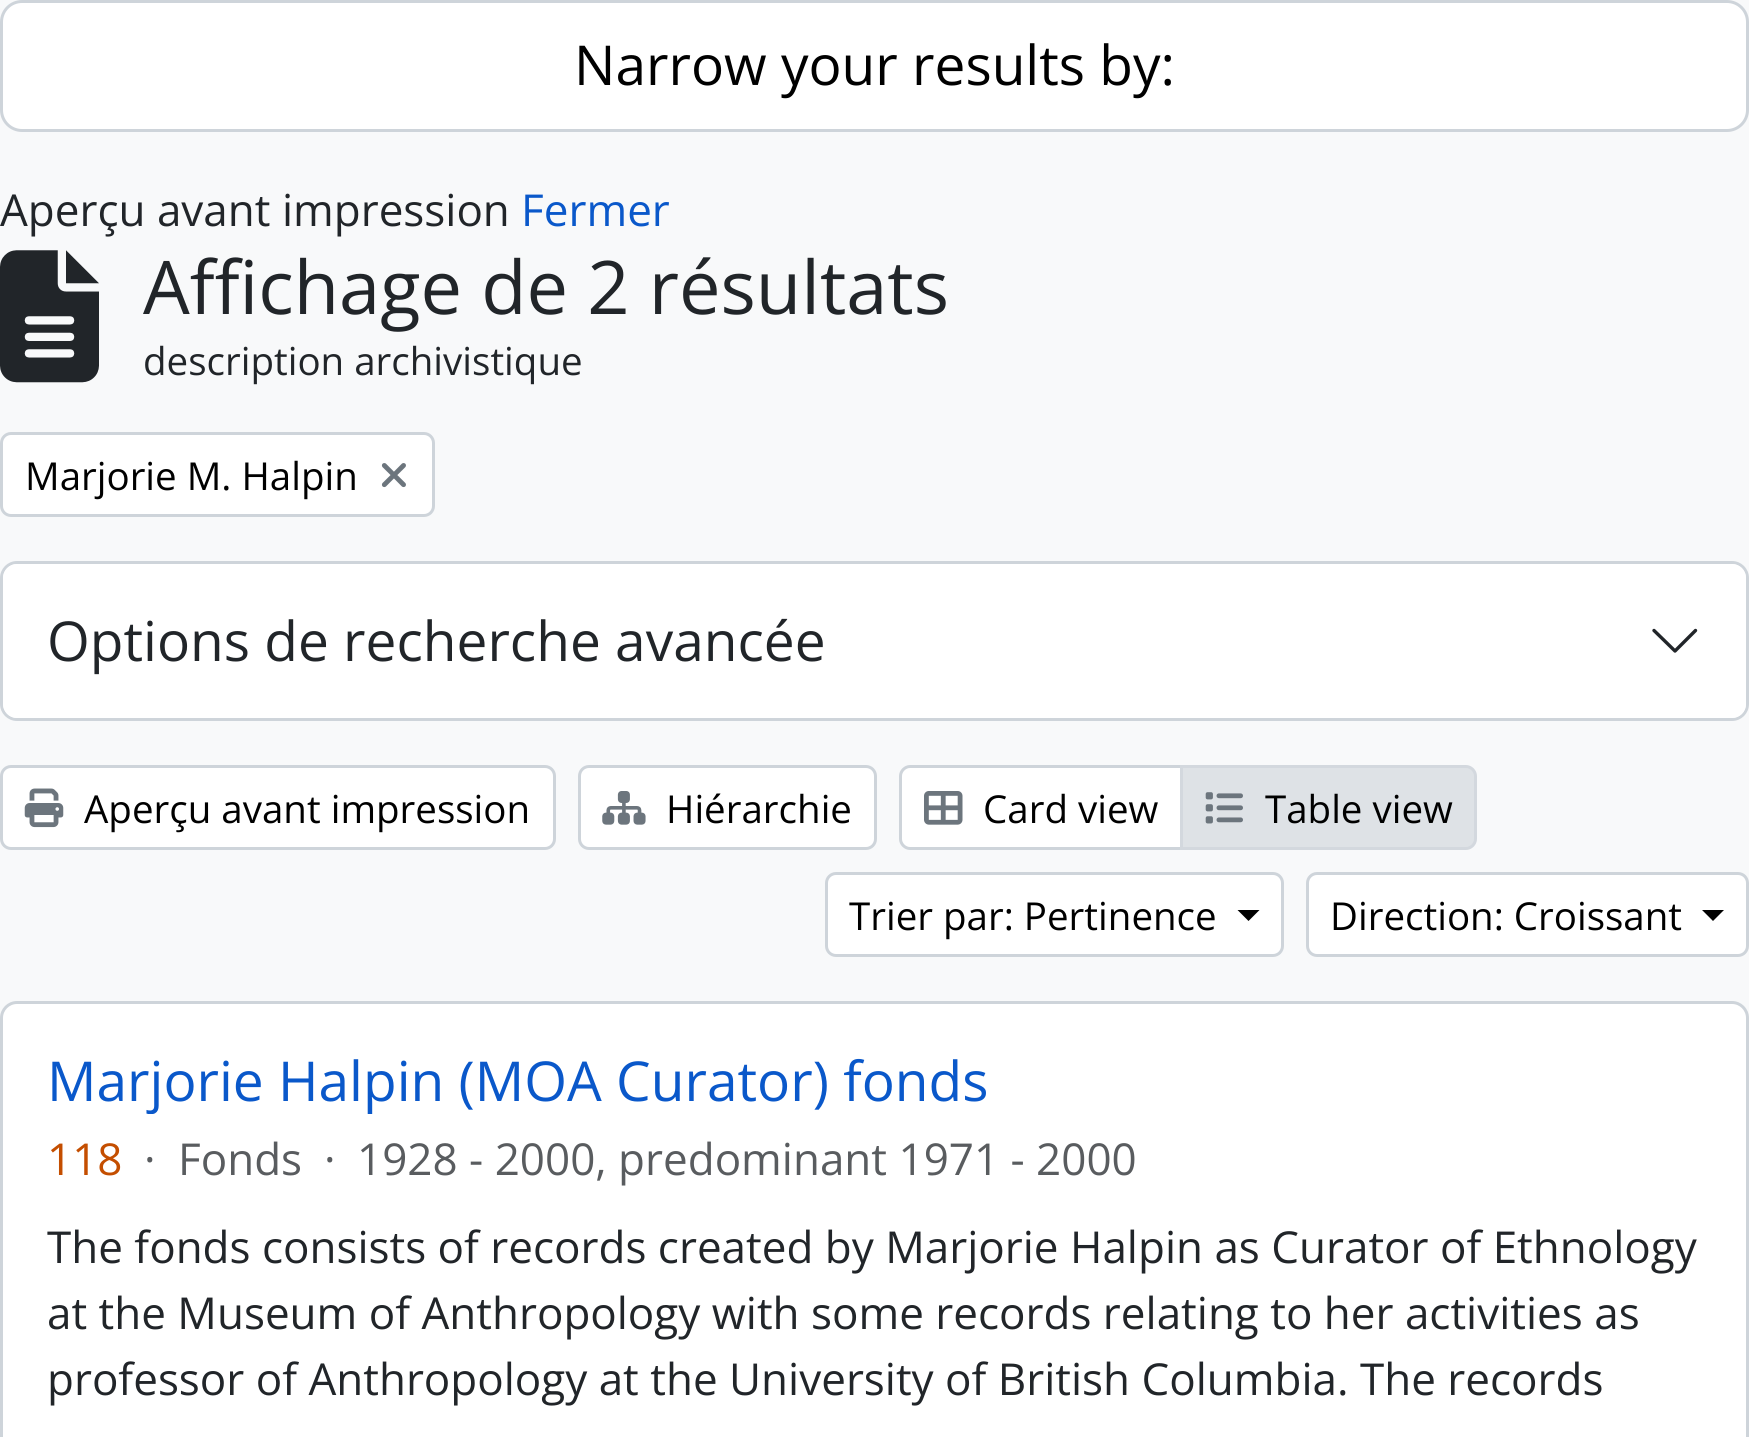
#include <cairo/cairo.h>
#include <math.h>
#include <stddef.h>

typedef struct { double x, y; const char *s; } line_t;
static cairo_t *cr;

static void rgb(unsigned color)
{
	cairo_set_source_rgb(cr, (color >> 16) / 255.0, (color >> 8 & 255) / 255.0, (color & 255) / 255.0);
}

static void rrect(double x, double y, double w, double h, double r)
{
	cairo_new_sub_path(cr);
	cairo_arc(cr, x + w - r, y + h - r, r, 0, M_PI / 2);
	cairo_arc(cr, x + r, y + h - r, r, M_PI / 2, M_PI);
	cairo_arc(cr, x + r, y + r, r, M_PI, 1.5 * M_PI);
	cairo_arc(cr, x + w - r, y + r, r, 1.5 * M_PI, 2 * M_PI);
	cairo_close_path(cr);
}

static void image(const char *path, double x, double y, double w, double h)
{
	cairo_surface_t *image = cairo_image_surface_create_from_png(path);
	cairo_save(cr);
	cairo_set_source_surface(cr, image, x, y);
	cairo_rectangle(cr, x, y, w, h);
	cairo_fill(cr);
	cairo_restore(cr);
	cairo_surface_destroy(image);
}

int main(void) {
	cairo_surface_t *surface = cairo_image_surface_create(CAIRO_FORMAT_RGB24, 1749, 1437);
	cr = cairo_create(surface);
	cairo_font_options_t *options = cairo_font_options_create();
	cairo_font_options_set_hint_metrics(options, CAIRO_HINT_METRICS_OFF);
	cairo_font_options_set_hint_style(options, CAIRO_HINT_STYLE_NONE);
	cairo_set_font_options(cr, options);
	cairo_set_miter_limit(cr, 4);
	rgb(0xf8f9fa);
	cairo_paint(cr);
	rgb(0xffffff);
	rrect(1.5, 1.5, 1746, 129, 20.5);
	cairo_fill_preserve(cr);
	rgb(0xced4da);
	cairo_set_line_width(cr, 3);
	cairo_stroke(cr);
	image("img/1.png", 0, 250, 99, 133);
	rgb(0xffffff);
	rrect(1.5, 433.5, 432, 82, 9.5);
	cairo_fill_preserve(cr);
	rgb(0xced4da);
	cairo_stroke(cr);
	image("img/2.png", 381, 463, 25, 25);
	rrect(1.5, 562.5, 1746, 157, 15.5);
	cairo_stroke(cr);
	rgb(0xffffff);
	rrect(3, 564, 1743, 154, 14);
	cairo_fill(cr);
	cairo_new_path(cr);
	cairo_move_to(cr, 1654, 630.5);
	cairo_line_to(cr, 1675, 651);
	cairo_line_to(cr, 1695.5, 630.5);
	rgb(0x212529);
	cairo_set_line_width(cr, 3.4);
	cairo_set_line_cap(cr, CAIRO_LINE_CAP_ROUND);
	cairo_set_line_join(cr, CAIRO_LINE_JOIN_ROUND);
	cairo_stroke(cr);
	rgb(0xffffff);
	rrect(1.5, 766.5, 553, 82, 9.5);
	cairo_fill_preserve(cr);
	rgb(0xced4da);
	cairo_set_line_width(cr, 3);
	cairo_set_line_cap(cr, CAIRO_LINE_CAP_BUTT);
	cairo_set_line_join(cr, CAIRO_LINE_JOIN_MITER);
	cairo_stroke(cr);
	image("img/3.png", 24, 788, 40, 40);
	rgb(0xffffff);
	rrect(579.5, 766.5, 296, 82, 9.5);
	cairo_fill_preserve(cr);
	rgb(0xced4da);
	cairo_stroke(cr);
	image("img/4.png", 602, 791, 44, 34);
	rgb(0xffffff);
	cairo_new_path(cr);
	cairo_move_to(cr, 910, 766.5);
	cairo_line_to(cr, 1181.5, 766.5);
	cairo_line_to(cr, 1181.5, 848.5);
	cairo_line_to(cr, 910, 848.5);
	cairo_curve_to(cr, 905, 848.5, 900.5, 844, 900.5, 839);
	cairo_line_to(cr, 900.5, 776);
	cairo_curve_to(cr, 900.5, 771, 905, 766.5, 910, 766.5);
	cairo_close_path(cr);
	cairo_fill_preserve(cr);
	rgb(0xced4da);
	cairo_stroke(cr);
	image("img/5.png", 924, 791, 39, 34);
	rgb(0xdee2e6);
	cairo_new_path(cr);
	cairo_move_to(cr, 1181.5, 766.5);
	cairo_line_to(cr, 1466, 766.5);
	cairo_curve_to(cr, 1471, 766.5, 1475.5, 771, 1475.5, 776);
	cairo_line_to(cr, 1475.5, 839);
	cairo_curve_to(cr, 1475.5, 844, 1471, 848.5, 1466, 848.5);
	cairo_line_to(cr, 1181.5, 848.5);
	cairo_close_path(cr);
	cairo_fill_preserve(cr);
	rgb(0xd3d8de);
	cairo_stroke(cr);
	image("img/6.png", 1205, 792, 38, 32);
	rgb(0xffffff);
	rrect(826.5, 873.5, 456, 82, 9.5);
	cairo_fill_preserve(cr);
	rgb(0xced4da);
	cairo_stroke(cr);
	rgb(0x000000);
	cairo_new_path(cr);
	cairo_move_to(cr, 1237.5, 910);
	cairo_line_to(cr, 1259.5, 910);
	cairo_line_to(cr, 1248.5, 921);
	cairo_close_path(cr);
	cairo_fill(cr);
	rgb(0xffffff);
	rrect(1307.5, 873.5, 440, 82, 9.5);
	cairo_fill_preserve(cr);
	rgb(0xced4da);
	cairo_stroke(cr);
	rgb(0x000000);
	cairo_new_path(cr);
	cairo_move_to(cr, 1702, 910);
	cairo_line_to(cr, 1724, 910);
	cairo_line_to(cr, 1713, 921);
	cairo_close_path(cr);
	cairo_fill(cr);
	rgb(0xffffff);
	rrect(1.5, 1002.5, 1746, 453, 15.5);
	cairo_fill_preserve(cr);
	rgb(0xced4da);
	cairo_stroke(cr);
	cairo_select_font_face(cr, "Open Sans", CAIRO_FONT_SLANT_NORMAL, CAIRO_FONT_WEIGHT_NORMAL);
	cairo_set_font_size(cr, 55);
	rgb(0x000000);
	cairo_move_to(cr, 574, 85);
	cairo_show_text(cr, "Narrow your results by:");
	cairo_set_font_size(cr, 44);
	rgb(0x212529);
	cairo_move_to(cr, 0, 226);
	cairo_show_text(cr, "Aperçu avant impression");
	rgb(0x0a58ca);
	cairo_move_to(cr, 521, 226);
	cairo_show_text(cr, "Fermer");
	cairo_set_font_size(cr, 74);
	rgb(0x212529);
	cairo_move_to(cr, 143, 314);
	cairo_show_text(cr, "Affichage de 2 résultats");
	cairo_set_font_size(cr, 38.5);
	cairo_move_to(cr, 143, 375);
	cairo_show_text(cr, "description archivistique");
	rgb(0x000000);
	cairo_move_to(cr, 25, 490);
	cairo_show_text(cr, "Marjorie M. Halpin");
	cairo_set_font_size(cr, 55);
	rgb(0x212529);
	cairo_move_to(cr, 47, 661);
	cairo_show_text(cr, "Options de recherche avancée");
	cairo_set_font_size(cr, 38.5);
	rgb(0x000000);
	{
		static const line_t items[] = {
			{84, 823, "Aperçu avant impression"},
			{666, 823, "Hiérarchie"},
			{983, 823, "Card view"},
			{1265, 823, "Table view"},
			{849, 930, "Trier par: Pertinence"},
			{1330, 930, "Direction: Croissant"},
		};
		for (size_t i = 0; i < sizeof items / sizeof *items; i++) {
			cairo_move_to(cr, items[i].x, items[i].y);
			cairo_show_text(cr, items[i].s);
		}
	}
	cairo_save(cr);
	cairo_rectangle(cr, 47, 1048, 940, 66);
	cairo_clip(cr);
	cairo_set_font_size(cr, 55);
	rgb(0x0a58ca);
	cairo_move_to(cr, 47, 1101);
	cairo_show_text(cr, "Marjorie Halpin (MOA Curator) fonds");
	cairo_restore(cr);
	cairo_set_font_size(cr, 44);
	rgb(0xc44e00);
	cairo_move_to(cr, 47, 1175);
	cairo_show_text(cr, "118");
	rgb(0x595c5f);
	{
		static const line_t items[] = {
			{144, 1175, "·"},
			{178, 1175, "Fonds"},
			{324, 1175, "·"},
			{357, 1175, "1928 - 2000, predominant 1971 - 2000"},
		};
		for (size_t i = 0; i < sizeof items / sizeof *items; i++) {
			cairo_move_to(cr, items[i].x, items[i].y);
			cairo_show_text(cr, items[i].s);
		}
	}
	rgb(0x212529);
	{
		static const line_t items[] = {
			{47, 1263, "The fonds consists of records created by Marjorie Halpin as Curator of Ethnology"},
			{47, 1329, "at the Museum of Anthropology with some records relating to her activities as"},
			{47, 1395, "professor of Anthropology at the University of British Columbia. The records"},
		};
		for (size_t i = 0; i < sizeof items / sizeof *items; i++) {
			cairo_move_to(cr, items[i].x, items[i].y);
			cairo_show_text(cr, items[i].s);
		}
	}
	cairo_surface_write_to_png(surface, "page.png");
	cairo_font_options_destroy(options);
	cairo_destroy(cr);
	cairo_surface_destroy(surface);
	return 0;
}
